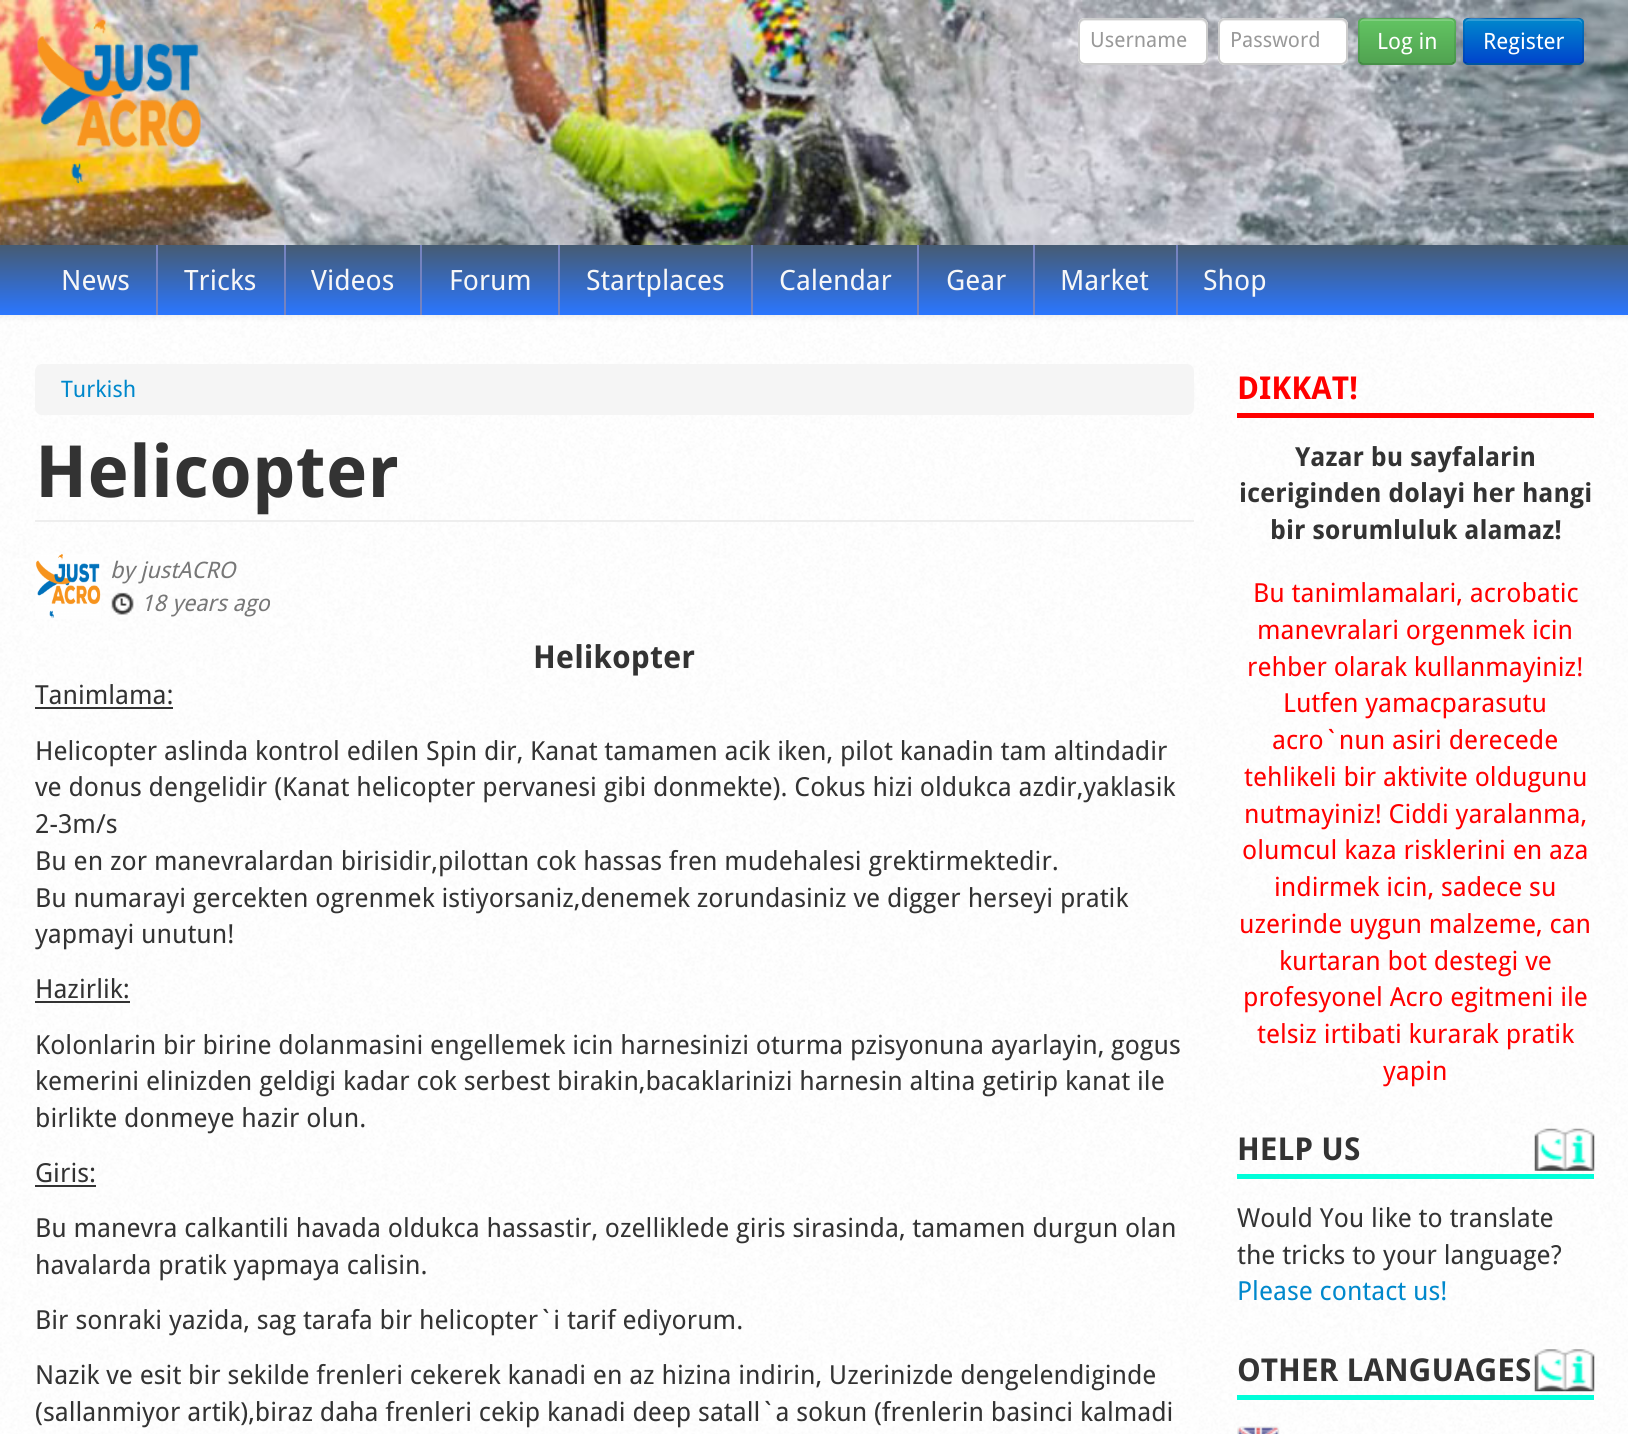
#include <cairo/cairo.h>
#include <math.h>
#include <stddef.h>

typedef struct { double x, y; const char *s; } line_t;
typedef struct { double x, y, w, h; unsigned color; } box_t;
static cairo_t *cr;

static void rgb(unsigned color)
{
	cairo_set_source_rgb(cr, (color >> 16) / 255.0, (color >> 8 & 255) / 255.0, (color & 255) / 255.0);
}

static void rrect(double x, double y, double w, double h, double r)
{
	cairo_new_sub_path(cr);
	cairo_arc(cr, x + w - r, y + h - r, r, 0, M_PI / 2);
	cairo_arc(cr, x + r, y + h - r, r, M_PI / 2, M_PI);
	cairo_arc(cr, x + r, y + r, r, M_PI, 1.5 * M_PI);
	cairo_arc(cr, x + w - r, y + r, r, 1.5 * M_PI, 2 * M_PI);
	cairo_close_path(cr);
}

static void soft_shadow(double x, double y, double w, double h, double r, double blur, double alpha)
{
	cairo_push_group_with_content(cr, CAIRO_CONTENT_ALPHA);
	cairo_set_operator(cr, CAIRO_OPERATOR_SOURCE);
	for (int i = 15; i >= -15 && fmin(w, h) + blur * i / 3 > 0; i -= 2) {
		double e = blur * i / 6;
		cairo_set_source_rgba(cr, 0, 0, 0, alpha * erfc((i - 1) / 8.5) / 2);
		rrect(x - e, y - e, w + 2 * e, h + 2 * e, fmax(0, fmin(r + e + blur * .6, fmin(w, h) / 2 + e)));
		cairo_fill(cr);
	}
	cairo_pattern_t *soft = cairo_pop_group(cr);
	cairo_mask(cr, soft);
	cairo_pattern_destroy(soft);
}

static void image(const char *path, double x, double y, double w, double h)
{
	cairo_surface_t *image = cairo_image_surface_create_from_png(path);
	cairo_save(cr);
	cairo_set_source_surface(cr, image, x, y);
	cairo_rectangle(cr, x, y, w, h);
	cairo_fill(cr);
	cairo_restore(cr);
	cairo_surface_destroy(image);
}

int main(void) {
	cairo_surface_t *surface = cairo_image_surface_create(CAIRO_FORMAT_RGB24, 1628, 1434);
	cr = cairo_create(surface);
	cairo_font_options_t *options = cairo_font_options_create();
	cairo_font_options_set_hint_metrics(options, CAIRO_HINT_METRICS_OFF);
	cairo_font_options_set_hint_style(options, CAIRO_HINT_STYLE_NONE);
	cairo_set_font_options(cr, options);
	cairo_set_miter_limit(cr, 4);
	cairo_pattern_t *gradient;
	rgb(0xffffff);
	cairo_paint(cr);
	image("img/1.png", 0, 315, 1628, 1119);
	rgb(0x000000);
	soft_shadow(0, 247, 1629, 70, 0, 3.5, 0.07);
	image("img/2.png", 0, 0, 1628, 245);
	image("img/3.png", 37, 19, 164, 165);
	rgb(0xffffff);
	rrect(1078, 18, 130, 47, 7);
	cairo_fill(cr);
	rgb(0xececec);
	cairo_new_path(cr);
	cairo_move_to(cr, 1085, 21);
	cairo_line_to(cr, 1200, 21);
	cairo_curve_to(cr, 1203, 21, 1206, 23, 1206, 26);
	cairo_line_to(cr, 1206, 24);
	cairo_curve_to(cr, 1206, 21, 1204, 19, 1201, 19);
	cairo_line_to(cr, 1085, 19);
	cairo_curve_to(cr, 1082, 19, 1080, 21, 1080, 24);
	cairo_line_to(cr, 1080, 26);
	cairo_curve_to(cr, 1080, 23, 1082, 21, 1085, 21);
	cairo_close_path(cr);
	cairo_fill(cr);
	rrect(1079, 19, 128, 45, 6);
	rgb(0xcccccc);
	cairo_stroke(cr);
	rgb(0xffffff);
	rrect(1218, 18, 130, 47, 7);
	cairo_fill(cr);
	rgb(0xececec);
	cairo_new_path(cr);
	cairo_move_to(cr, 1225, 21);
	cairo_line_to(cr, 1340, 21);
	cairo_curve_to(cr, 1343, 21, 1346, 23, 1346, 26);
	cairo_line_to(cr, 1346, 24);
	cairo_curve_to(cr, 1346, 21, 1344, 19, 1341, 19);
	cairo_line_to(cr, 1225, 19);
	cairo_curve_to(cr, 1222, 19, 1220, 21, 1220, 24);
	cairo_line_to(cr, 1220, 26);
	cairo_curve_to(cr, 1220, 23, 1222, 21, 1225, 21);
	cairo_close_path(cr);
	cairo_fill(cr);
	rrect(1219, 19, 128, 45, 6);
	rgb(0xcccccc);
	cairo_stroke(cr);
	rgb(0x000000);
	soft_shadow(1358, 19, 98, 48, 5, 2, 0.05);
	rgb(0x5bb75b);
	rrect(1358, 18, 98, 47, 5);
	cairo_fill(cr);
	cairo_save(cr);
	rrect(1358, 18, 98, 47, 5);
	cairo_clip(cr);
	gradient = cairo_pattern_create_linear(1407, 19, 1407, 63);
	cairo_pattern_add_color_stop_rgba(gradient, 0, 0.384, 0.769, 0.384, 1);
	cairo_pattern_add_color_stop_rgba(gradient, 1, 0.318, 0.639, 0.318, 1);
	cairo_set_source(cr, gradient);
	cairo_pattern_destroy(gradient);
	cairo_rectangle(cr, 1358, 19, 98, 44);
	cairo_fill(cr);
	cairo_restore(cr);
	cairo_set_source_rgba(cr, 1, 1, 1, 0.2);
	cairo_new_path(cr);
	cairo_move_to(cr, 1363, 21);
	cairo_line_to(cr, 1451, 21);
	cairo_curve_to(cr, 1453, 21, 1454, 23, 1454, 24);
	cairo_curve_to(cr, 1454, 15, 1440, 19, 1436, 19);
	cairo_line_to(cr, 1378, 19);
	cairo_curve_to(cr, 1374, 19, 1360, 15, 1360, 24);
	cairo_curve_to(cr, 1360, 23, 1361, 21, 1363, 21);
	cairo_close_path(cr);
	cairo_fill(cr);
	cairo_new_path(cr);
	cairo_move_to(cr, 1454, 62.5);
	cairo_curve_to(cr, 1453, 63.5, 1452, 64, 1451, 64);
	cairo_line_to(cr, 1363, 64);
	cairo_curve_to(cr, 1362, 64, 1361, 63.5, 1360, 62.5);
	cairo_set_source_rgba(cr, 0, 0, 0, 0.25);
	cairo_set_line_width(cr, 1.8);
	cairo_stroke(cr);
	cairo_new_path(cr);
	cairo_move_to(cr, 1360, 62.5);
	cairo_curve_to(cr, 1358, 60.5, 1359, 55.5, 1359, 53.5);
	cairo_line_to(cr, 1359, 41);
	cairo_curve_to(cr, 1359, 16.5, 1354, 18.5, 1378, 18.5);
	cairo_line_to(cr, 1436, 18.5);
	cairo_curve_to(cr, 1460, 18.5, 1455, 16.5, 1455, 41);
	cairo_line_to(cr, 1455, 53.5);
	cairo_curve_to(cr, 1455, 55.5, 1456, 60.5, 1454, 62.5);
	cairo_set_source_rgba(cr, 0, 0, 0, 0.1);
	cairo_stroke(cr);
	rgb(0x000000);
	soft_shadow(1463, 19, 121, 48, 5, 2, 0.05);
	rgb(0x006dcc);
	rrect(1463, 18, 121, 47, 5);
	cairo_fill(cr);
	cairo_save(cr);
	rrect(1463, 18, 121, 47, 5);
	cairo_clip(cr);
	gradient = cairo_pattern_create_linear(1523, 19, 1523, 63);
	cairo_pattern_add_color_stop_rgba(gradient, 0, 0, 0.533, 0.8, 1);
	cairo_pattern_add_color_stop_rgba(gradient, 1, 0, 0.267, 0.8, 1);
	cairo_set_source(cr, gradient);
	cairo_pattern_destroy(gradient);
	cairo_rectangle(cr, 1463, 19, 121, 44);
	cairo_fill(cr);
	cairo_restore(cr);
	cairo_set_source_rgba(cr, 1, 1, 1, 0.2);
	cairo_new_path(cr);
	cairo_move_to(cr, 1468, 21);
	cairo_line_to(cr, 1578, 21);
	cairo_curve_to(cr, 1580, 21, 1582, 23, 1582, 24);
	cairo_curve_to(cr, 1582, 14, 1563, 19, 1560, 19);
	cairo_line_to(cr, 1487, 19);
	cairo_curve_to(cr, 1484, 19, 1465, 14, 1465, 24);
	cairo_curve_to(cr, 1465, 23, 1466, 21, 1468, 21);
	cairo_close_path(cr);
	cairo_fill(cr);
	cairo_new_path(cr);
	cairo_move_to(cr, 1581.5, 62.5);
	cairo_curve_to(cr, 1581, 63.5, 1579.5, 64, 1578.5, 64);
	cairo_line_to(cr, 1468, 64);
	cairo_curve_to(cr, 1467, 64, 1466, 63.5, 1465, 62.5);
	cairo_set_source_rgba(cr, 0, 0, 0, 0.25);
	cairo_stroke(cr);
	cairo_new_path(cr);
	cairo_move_to(cr, 1465, 62.5);
	cairo_curve_to(cr, 1463, 60.5, 1464, 55.5, 1464, 53.5);
	cairo_line_to(cr, 1464, 41);
	cairo_curve_to(cr, 1464, 14.5, 1459.5, 18.5, 1486.5, 18.5);
	cairo_line_to(cr, 1560, 18.5);
	cairo_curve_to(cr, 1587.5, 18.5, 1583, 14.5, 1583, 41);
	cairo_line_to(cr, 1583, 53.5);
	cairo_curve_to(cr, 1583, 55.5, 1584, 60.5, 1581.5, 62.5);
	cairo_set_source_rgba(cr, 0, 0, 0, 0.1);
	cairo_stroke(cr);
	gradient = cairo_pattern_create_linear(815, 245, 815, 315);
	cairo_pattern_add_color_stop_rgba(gradient, 0, 0.275, 0.357, 0.447, 1);
	cairo_pattern_add_color_stop_rgba(gradient, 1, 0.165, 0.463, 1, 1);
	cairo_set_source(cr, gradient);
	cairo_pattern_destroy(gradient);
	cairo_rectangle(cr, 0, 245, 1628, 70);
	cairo_fill(cr);
	{
		static const box_t items[] = {
			{156, 245, 2, 70, 0x7583c0},
			{284, 245, 2, 70, 0x7583c0},
			{420, 245, 2, 70, 0x7583c0},
			{558, 245, 2, 70, 0x7583c0},
			{751, 245, 2, 70, 0x7583c0},
			{917, 245, 2, 70, 0x7583c0},
			{1033, 245, 2, 70, 0x7583c0},
			{1176, 245, 2, 70, 0x7583c0},
		};
		for (size_t i = 0; i < sizeof items / sizeof *items; i++) {
			rgb(items[i].color);
			cairo_rectangle(cr, items[i].x, items[i].y, items[i].w, items[i].h);
			cairo_fill(cr);
		}
	}
	rgb(0xf5f5f5);
	rrect(35, 364, 1159, 51, 7);
	cairo_fill(cr);
	rgb(0xeeeeee);
	cairo_rectangle(cr, 35, 520, 1159, 2);
	cairo_fill(cr);
	image("img/4.png", 35, 554, 66, 65);
	image("img/5.png", 111, 592, 23, 23);
	{
		static const box_t items[] = {
			{35, 707, 138, 2, 0x333333},
			{35, 1001, 95, 2, 0x333333},
			{35, 1185, 61, 2, 0x333333},
			{1237, 413, 357, 5, 0xff0000},
		};
		for (size_t i = 0; i < sizeof items / sizeof *items; i++) {
			rgb(items[i].color);
			cairo_rectangle(cr, items[i].x, items[i].y, items[i].w, items[i].h);
			cairo_fill(cr);
		}
	}
	image("img/6.png", 1534, 1128, 61, 43);
	rgb(0x00fed9);
	cairo_rectangle(cr, 1237, 1174, 357, 5);
	cairo_fill(cr);
	image("img/7.png", 1534, 1349, 61, 43);
	cairo_rectangle(cr, 1237, 1395, 357, 5);
	cairo_fill(cr);
	image("img/8.png", 1237, 1426, 43, 8);
	cairo_select_font_face(cr, "Droid Sans", CAIRO_FONT_SLANT_NORMAL, CAIRO_FONT_WEIGHT_NORMAL);
	cairo_set_font_size(cr, 21);
	rgb(0x999999);
	cairo_move_to(cr, 1090, 47);
	cairo_show_text(cr, "Username");
	cairo_move_to(cr, 1230, 47);
	cairo_show_text(cr, "Password");
	cairo_set_font_size(cr, 22.5);
	rgb(0xffffff);
	cairo_move_to(cr, 1377, 49);
	cairo_show_text(cr, "Log in");
	cairo_move_to(cr, 1483, 49);
	cairo_show_text(cr, "Register");
	cairo_set_font_size(cr, 28);
	rgb(0xf7f7f7);
	{
		static const line_t items[] = {
			{61, 290, "News"},
			{184, 290, "Tricks"},
			{311, 290, "Videos"},
			{449, 290, "Forum"},
			{586, 290, "Startplaces"},
			{779, 290, "Calendar"},
			{946, 290, "Gear"},
			{1060, 290, "Market"},
			{1203, 290, "Shop"},
		};
		for (size_t i = 0; i < sizeof items / sizeof *items; i++) {
			cairo_move_to(cr, items[i].x, items[i].y);
			cairo_show_text(cr, items[i].s);
		}
	}
	cairo_set_font_size(cr, 22.75);
	rgb(0x0088cc);
	cairo_move_to(cr, 61, 397);
	cairo_show_text(cr, "Turkish");
	cairo_select_font_face(cr, "Droid Sans", CAIRO_FONT_SLANT_NORMAL, CAIRO_FONT_WEIGHT_BOLD);
	cairo_set_font_size(cr, 72);
	rgb(0x333333);
	cairo_move_to(cr, 35, 497);
	cairo_show_text(cr, "Helicopter");
	cairo_select_font_face(cr, "Droid Sans", CAIRO_FONT_SLANT_ITALIC, CAIRO_FONT_WEIGHT_NORMAL);
	cairo_set_font_size(cr, 22.75);
	rgb(0x777777);
	cairo_move_to(cr, 110, 578);
	cairo_show_text(cr, "by justACRO");
	cairo_move_to(cr, 141, 611);
	cairo_show_text(cr, "18 years ago");
	cairo_select_font_face(cr, "Droid Sans", CAIRO_FONT_SLANT_NORMAL, CAIRO_FONT_WEIGHT_BOLD);
	cairo_set_font_size(cr, 31.5);
	rgb(0x333333);
	cairo_move_to(cr, 533, 668);
	cairo_show_text(cr, "Helikopter");
	cairo_select_font_face(cr, "Droid Sans", CAIRO_FONT_SLANT_NORMAL, CAIRO_FONT_WEIGHT_NORMAL);
	cairo_set_font_size(cr, 26.25);
	{
		static const line_t items[] = {
			{35, 704, "Tanimlama:"},
			{35, 760, "Helicopter aslinda kontrol edilen Spin dir, Kanat tamamen acik iken, pilot kanadin tam altindadir"},
			{35, 796, "ve donus dengelidir (Kanat helicopter pervanesi gibi donmekte). Cokus hizi oldukca azdir,yaklasik"},
			{35, 833, "2-3m/s"},
			{35, 870, "Bu en zor manevralardan birisidir,pilottan cok hassas fren mudehalesi grektirmektedir."},
			{35, 907, "Bu numarayi gercekten ogrenmek istiyorsaniz,denemek zorundasiniz ve digger herseyi pratik"},
			{35, 943, "yapmayi unutun!"},
			{35, 998, "Hazirlik:"},
			{35, 1054, "Kolonlarin bir birine dolanmasini engellemek icin harnesinizi oturma pzisyonuna ayarlayin, gogus"},
			{35, 1090, "kemerini elinizden geldigi kadar cok serbest birakin,bacaklarinizi harnesin altina getirip kanat ile"},
			{35, 1127, "birlikte donmeye hazir olun."},
			{35, 1182, "Giris:"},
			{35, 1237, "Bu manevra calkantili havada oldukca hassastir, ozelliklede giris sirasinda, tamamen durgun olan"},
			{35, 1274, "havalarda pratik yapmaya calisin."},
			{35, 1329, "Bir sonraki yazida, sag tarafa bir helicopter`i tarif ediyorum."},
			{35, 1384, "Nazik ve esit bir sekilde frenleri cekerek kanadi en az hizina indirin, Uzerinizde dengelendiginde"},
			{35, 1421, "(sallanmiyor artik),biraz daha frenleri cekip kanadi deep satall`a sokun (frenlerin basinci kalmadi"},
		};
		for (size_t i = 0; i < sizeof items / sizeof *items; i++) {
			cairo_move_to(cr, items[i].x, items[i].y);
			cairo_show_text(cr, items[i].s);
		}
	}
	cairo_select_font_face(cr, "Droid Sans", CAIRO_FONT_SLANT_NORMAL, CAIRO_FONT_WEIGHT_BOLD);
	cairo_set_font_size(cr, 31.5);
	rgb(0xff0000);
	cairo_move_to(cr, 1237, 399);
	cairo_show_text(cr, "DIKKAT!");
	cairo_set_font_size(cr, 26.25);
	rgb(0x333333);
	{
		static const line_t items[] = {
			{1295, 466, "Yazar bu sayfalarin"},
			{1239, 502, "iceriginden dolayi her hangi"},
			{1270, 539, "bir sorumluluk alamaz!"},
		};
		for (size_t i = 0; i < sizeof items / sizeof *items; i++) {
			cairo_move_to(cr, items[i].x, items[i].y);
			cairo_show_text(cr, items[i].s);
		}
	}
	cairo_select_font_face(cr, "Droid Sans", CAIRO_FONT_SLANT_NORMAL, CAIRO_FONT_WEIGHT_NORMAL);
	rgb(0xff0000);
	{
		static const line_t items[] = {
			{1253, 602, "Bu tanimlamalari, acrobatic"},
			{1257, 639, "manevralari orgenmek icin"},
			{1247, 676, "rehber olarak kullanmayiniz!"},
			{1283, 712, "Lutfen yamacparasutu"},
			{1272, 749, "acro`nun asiri derecede"},
			{1244, 786, "tehlikeli bir aktivite oldugunu"},
			{1244, 823, "nutmayiniz! Ciddi yaralanma,"},
			{1242, 859, "olumcul kaza risklerini en aza"},
			{1274, 896, "indirmek icin, sadece su"},
			{1239, 933, "uzerinde uygun malzeme, can"},
			{1279, 970, "kurtaran bot destegi ve"},
			{1243, 1006, "profesyonel Acro egitmeni ile"},
			{1257, 1043, "telsiz irtibati kurarak pratik"},
			{1383, 1080, "yapin"},
		};
		for (size_t i = 0; i < sizeof items / sizeof *items; i++) {
			cairo_move_to(cr, items[i].x, items[i].y);
			cairo_show_text(cr, items[i].s);
		}
	}
	cairo_select_font_face(cr, "Droid Sans", CAIRO_FONT_SLANT_NORMAL, CAIRO_FONT_WEIGHT_BOLD);
	cairo_set_font_size(cr, 31.5);
	rgb(0x333333);
	cairo_move_to(cr, 1237, 1160);
	cairo_show_text(cr, "HELP US");
	cairo_select_font_face(cr, "Droid Sans", CAIRO_FONT_SLANT_NORMAL, CAIRO_FONT_WEIGHT_NORMAL);
	cairo_set_font_size(cr, 26.25);
	cairo_move_to(cr, 1237, 1227);
	cairo_show_text(cr, "Would You like to translate");
	cairo_move_to(cr, 1237, 1264);
	cairo_show_text(cr, "the tricks to your language?");
	rgb(0x0088cc);
	cairo_move_to(cr, 1237, 1300);
	cairo_show_text(cr, "Please contact us!");
	cairo_select_font_face(cr, "Droid Sans", CAIRO_FONT_SLANT_NORMAL, CAIRO_FONT_WEIGHT_BOLD);
	cairo_set_font_size(cr, 31.5);
	rgb(0x333333);
	cairo_move_to(cr, 1237, 1381);
	cairo_show_text(cr, "OTHER LANGUAGES");
	cairo_surface_write_to_png(surface, "page.png");
	cairo_font_options_destroy(options);
	cairo_destroy(cr);
	cairo_surface_destroy(surface);
	return 0;
}
